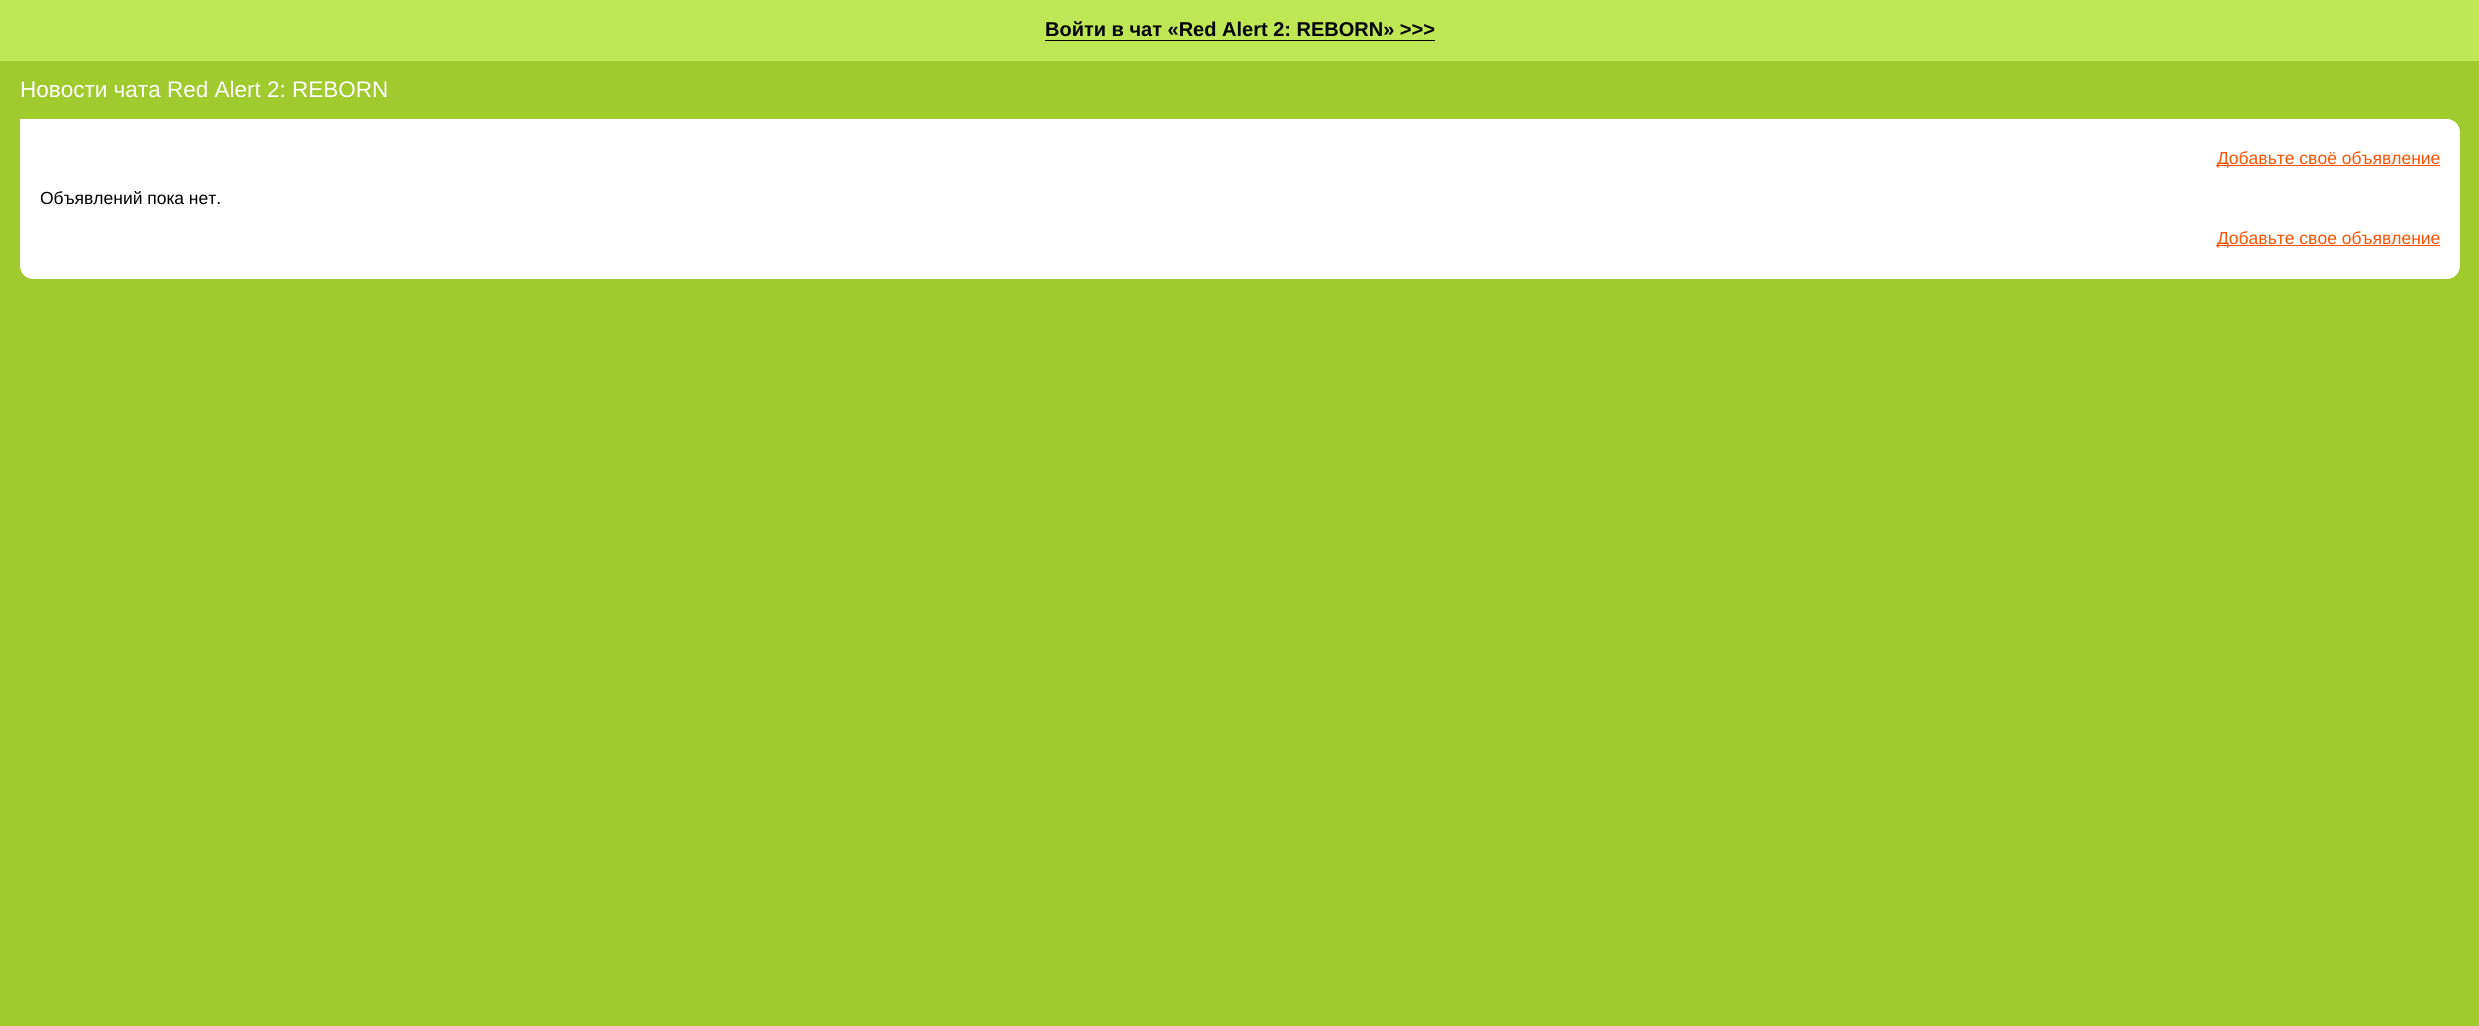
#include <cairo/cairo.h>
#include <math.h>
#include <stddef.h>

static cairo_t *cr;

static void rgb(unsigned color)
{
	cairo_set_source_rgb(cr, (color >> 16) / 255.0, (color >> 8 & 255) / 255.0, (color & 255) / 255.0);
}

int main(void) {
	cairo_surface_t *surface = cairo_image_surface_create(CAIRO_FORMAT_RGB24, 2479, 1026);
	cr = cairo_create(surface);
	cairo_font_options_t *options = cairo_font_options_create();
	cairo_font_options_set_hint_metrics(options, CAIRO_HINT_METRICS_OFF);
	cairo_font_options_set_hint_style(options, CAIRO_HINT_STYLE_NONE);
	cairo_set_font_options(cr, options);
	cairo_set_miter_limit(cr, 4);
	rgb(0xa0ca2d);
	cairo_paint(cr);
	rgb(0xbee655);
	cairo_rectangle(cr, 0, 0, 2479, 61);
	cairo_fill(cr);
	rgb(0x000000);
	cairo_rectangle(cr, 1045, 40, 390, 1);
	cairo_fill(cr);
	rgb(0xffffff);
	cairo_new_path(cr);
	cairo_move_to(cr, 20, 119);
	cairo_line_to(cr, 2447, 119);
	cairo_curve_to(cr, 2454, 119, 2460, 125, 2460, 132);
	cairo_line_to(cr, 2460, 266);
	cairo_curve_to(cr, 2460, 273, 2454, 279, 2447, 279);
	cairo_line_to(cr, 33, 279);
	cairo_curve_to(cr, 26, 279, 20, 273, 20, 266);
	cairo_close_path(cr);
	cairo_fill(cr);
	rgb(0xff5100);
	cairo_rectangle(cr, 2216, 165, 224, 1);
	cairo_fill(cr);
	cairo_rectangle(cr, 2216, 245, 224, 1);
	cairo_fill(cr);
	cairo_select_font_face(cr, "Liberation Sans", CAIRO_FONT_SLANT_NORMAL, CAIRO_FONT_WEIGHT_BOLD);
	cairo_set_font_size(cr, 20);
	rgb(0x000000);
	cairo_move_to(cr, 1045, 36);
	cairo_show_text(cr, "Войти в чат «Red Alert 2: REBORN» >>>");
	cairo_select_font_face(cr, "Liberation Sans", CAIRO_FONT_SLANT_NORMAL, CAIRO_FONT_WEIGHT_NORMAL);
	cairo_set_font_size(cr, 22.5);
	rgb(0xffffff);
	cairo_move_to(cr, 20, 97);
	cairo_show_text(cr, "Новости чата Red Alert 2: REBORN");
	cairo_set_font_size(cr, 17.5);
	rgb(0xff5100);
	cairo_move_to(cr, 2217, 164);
	cairo_show_text(cr, "Добавьте своё объявление");
	rgb(0x000000);
	cairo_move_to(cr, 40, 204);
	cairo_show_text(cr, "Объявлений пока нет.");
	rgb(0xff5100);
	cairo_move_to(cr, 2217, 244);
	cairo_show_text(cr, "Добавьте свое объявление");
	cairo_surface_write_to_png(surface, "page.png");
	cairo_font_options_destroy(options);
	cairo_destroy(cr);
	cairo_surface_destroy(surface);
	return 0;
}
